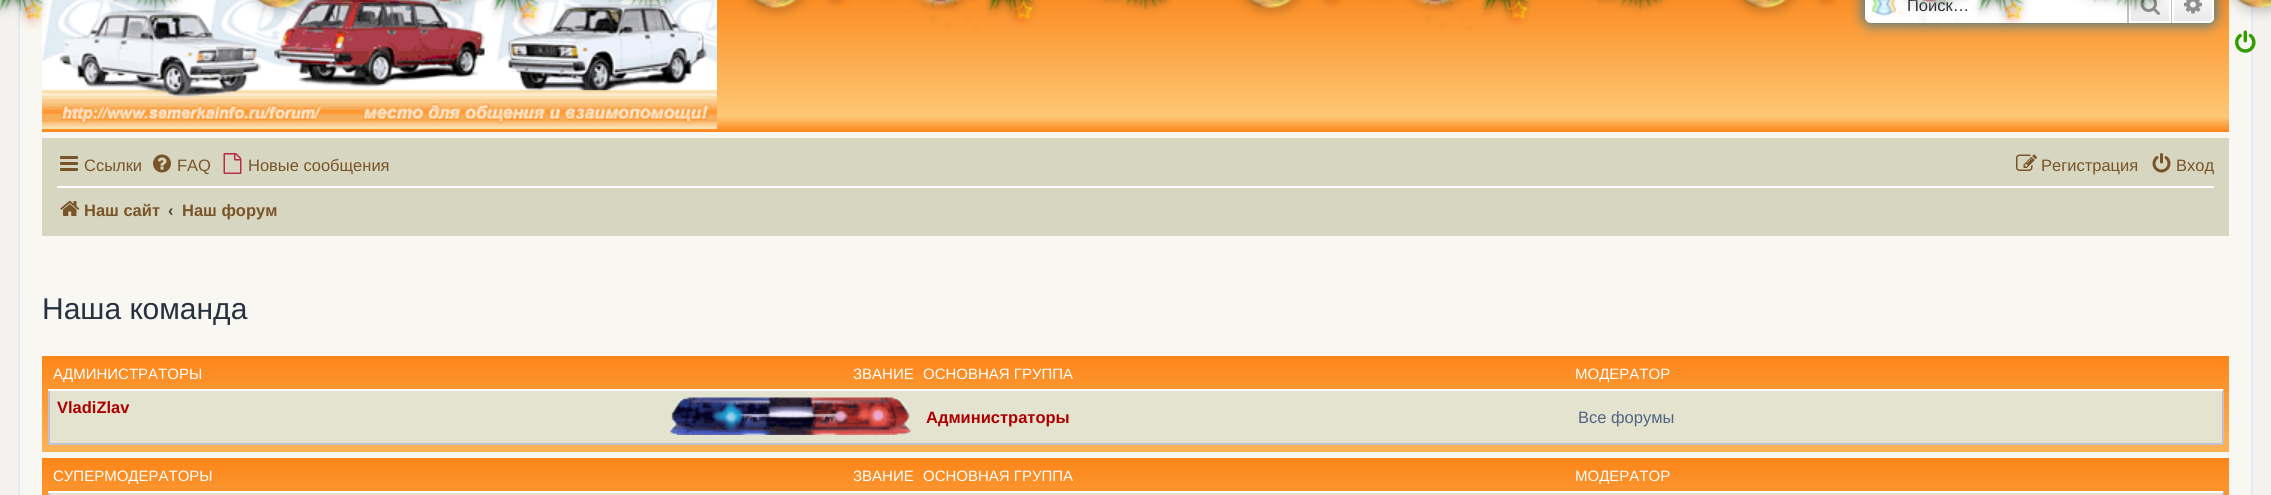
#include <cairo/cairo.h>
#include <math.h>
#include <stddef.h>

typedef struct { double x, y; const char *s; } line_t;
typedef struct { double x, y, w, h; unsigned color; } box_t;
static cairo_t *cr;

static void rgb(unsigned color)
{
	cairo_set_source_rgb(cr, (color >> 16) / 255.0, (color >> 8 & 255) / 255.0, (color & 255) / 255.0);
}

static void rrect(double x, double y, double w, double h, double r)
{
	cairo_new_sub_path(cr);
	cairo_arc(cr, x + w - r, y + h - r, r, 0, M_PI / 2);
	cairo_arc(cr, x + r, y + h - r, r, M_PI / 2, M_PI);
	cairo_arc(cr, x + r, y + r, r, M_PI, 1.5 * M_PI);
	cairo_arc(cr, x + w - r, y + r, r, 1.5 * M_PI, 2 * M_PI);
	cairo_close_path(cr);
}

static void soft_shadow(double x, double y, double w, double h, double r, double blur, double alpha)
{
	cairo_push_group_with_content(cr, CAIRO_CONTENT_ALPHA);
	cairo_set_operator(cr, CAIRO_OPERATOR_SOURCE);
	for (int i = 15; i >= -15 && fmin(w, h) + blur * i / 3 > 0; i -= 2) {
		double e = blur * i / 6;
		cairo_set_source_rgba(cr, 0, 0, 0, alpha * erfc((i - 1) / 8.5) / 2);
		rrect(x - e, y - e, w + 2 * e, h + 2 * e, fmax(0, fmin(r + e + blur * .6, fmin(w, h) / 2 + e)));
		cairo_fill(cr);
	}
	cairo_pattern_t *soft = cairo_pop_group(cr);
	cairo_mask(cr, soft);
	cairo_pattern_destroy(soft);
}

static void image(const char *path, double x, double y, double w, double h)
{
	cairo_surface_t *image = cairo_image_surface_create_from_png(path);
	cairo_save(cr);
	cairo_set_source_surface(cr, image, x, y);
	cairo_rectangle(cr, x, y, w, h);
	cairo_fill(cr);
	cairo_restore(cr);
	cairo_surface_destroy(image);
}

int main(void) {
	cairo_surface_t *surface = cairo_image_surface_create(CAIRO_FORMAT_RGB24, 2271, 495);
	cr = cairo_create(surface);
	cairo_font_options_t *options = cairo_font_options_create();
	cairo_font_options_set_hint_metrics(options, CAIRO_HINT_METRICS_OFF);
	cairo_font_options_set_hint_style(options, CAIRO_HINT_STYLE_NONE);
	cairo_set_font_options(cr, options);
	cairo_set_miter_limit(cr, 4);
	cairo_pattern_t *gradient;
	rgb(0xf3f2ee);
	cairo_paint(cr);
	rgb(0xf8f7f1);
	cairo_rectangle(cr, 19, -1, 2233, 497);
	cairo_fill_preserve(cr);
	rgb(0xe6e9ed);
	cairo_stroke(cr);
	gradient = cairo_pattern_create_linear(1136, -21, 1136, 132);
	cairo_pattern_add_color_stop_rgba(gradient, 0, 0.988, 0.525, 0.102, 1);
	cairo_pattern_add_color_stop_rgba(gradient, 0.02, 0.988, 0.525, 0.102, 1);
	cairo_pattern_add_color_stop_rgba(gradient, 0.9, 0.996, 0.78, 0.455, 1);
	cairo_pattern_add_color_stop_rgba(gradient, 1, 0.988, 0.525, 0.102, 1);
	cairo_set_source(cr, gradient);
	cairo_pattern_destroy(gradient);
	cairo_rectangle(cr, 42, 0, 2187, 132);
	cairo_fill(cr);
	rgb(0x0075b0);
	soft_shadow(1865, -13, 349, 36, 6, 7.5, 1);
	image("img/2.png", 2235, 30, 21, 23);
	image("img/3.png", 42, 0, 675, 129);
	rgb(0xffffff);
	rrect(1865, -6, 349, 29, 6);
	cairo_fill(cr);
	gradient = cairo_pattern_create_linear(2150, -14, 2150, 23);
	cairo_pattern_add_color_stop_rgba(gradient, 0, 1, 1, 1, 1);
	cairo_pattern_add_color_stop_rgba(gradient, 1, 0.914, 0.914, 0.914, 1);
	cairo_set_source(cr, gradient);
	cairo_pattern_destroy(gradient);
	cairo_rectangle(cr, 2131, 0, 38, 21);
	cairo_fill(cr);
	rgb(0xc7c3bf);
	cairo_rectangle(cr, 2171, 0, 1, 23);
	cairo_fill(cr);
	cairo_rectangle(cr, 2127, 0, 2, 23);
	cairo_fill(cr);
	image("img/5.png", 2140, 0, 20, 15);
	gradient = cairo_pattern_create_linear(2193, -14, 2193, 23);
	cairo_pattern_add_color_stop_rgba(gradient, 0, 1, 1, 1, 1);
	cairo_pattern_add_color_stop_rgba(gradient, 1, 0.914, 0.914, 0.914, 1);
	cairo_set_source(cr, gradient);
	cairo_pattern_destroy(gradient);
	cairo_new_path(cr);
	cairo_move_to(cr, 2172, -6);
	cairo_line_to(cr, 2208, -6);
	cairo_curve_to(cr, 2211.5, -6, 2214, -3.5, 2214, 0);
	cairo_line_to(cr, 2214, 17);
	cairo_curve_to(cr, 2214, 20.5, 2211.5, 23, 2208, 23);
	cairo_line_to(cr, 2172, 23);
	cairo_close_path(cr);
	cairo_fill(cr);
	cairo_new_path(cr);
	cairo_move_to(cr, 2173, -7);
	cairo_line_to(cr, 2208, -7);
	cairo_curve_to(cr, 2211, -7, 2213, -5, 2213, -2);
	cairo_line_to(cr, 2213, 17);
	cairo_curve_to(cr, 2213, 20, 2211, 22, 2208, 22);
	cairo_line_to(cr, 2173, 22);
	cairo_close_path(cr);
	rgb(0xffffff);
	cairo_stroke(cr);
	image("img/6.png", 2184, 0, 18, 14);
	rgb(0xd7d6c1);
	cairo_rectangle(cr, 42, 138, 2187, 98);
	cairo_fill(cr);
	image("img/7.png", 60, 156, 18, 15);
	image("img/8.png", 153, 154, 18, 19);
	image("img/9.png", 223, 153, 19, 21);
	image("img/10.png", 2016, 154, 21, 17);
	image("img/11.png", 2152, 153, 19, 20);
	rgb(0xffffff);
	cairo_rectangle(cr, 57, 186, 2157, 2);
	cairo_fill(cr);
	image("img/12.png", 60, 201, 20, 15);
	gradient = cairo_pattern_create_linear(1136, 355, 1136, 493);
	cairo_pattern_add_color_stop_rgba(gradient, 0, 0.988, 0.525, 0.102, 1);
	cairo_pattern_add_color_stop_rgba(gradient, 0.02, 0.988, 0.525, 0.102, 1);
	cairo_pattern_add_color_stop_rgba(gradient, 1, 0.996, 0.78, 0.455, 1);
	cairo_pattern_add_color_stop_rgba(gradient, 1, 0.988, 0.525, 0.102, 1);
	cairo_set_source(cr, gradient);
	cairo_pattern_destroy(gradient);
	cairo_rectangle(cr, 42, 356, 2187, 96);
	cairo_fill(cr);
	{
		static const box_t items[] = {
			{50, 391, 2172, 52, 0xe4e3d0},
			{2222, 389, 2, 55, 0xbfc1cf},
			{48, 443, 2175, 2, 0xbfc1cf},
			{48, 389, 2, 55, 0xbfc1cf},
		};
		for (size_t i = 0; i < sizeof items / sizeof *items; i++) {
			rgb(items[i].color);
			cairo_rectangle(cr, items[i].x, items[i].y, items[i].w, items[i].h);
			cairo_fill(cr);
		}
	}
	image("img/13.png", 670, 397, 241, 38);
	rgb(0xfafafa);
	cairo_rectangle(cr, 48, 389, 2175, 2);
	cairo_fill(cr);
	gradient = cairo_pattern_create_linear(1136, 457, 1136, 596);
	cairo_pattern_add_color_stop_rgba(gradient, 0, 0.988, 0.525, 0.102, 1);
	cairo_pattern_add_color_stop_rgba(gradient, 0.02, 0.988, 0.525, 0.102, 1);
	cairo_pattern_add_color_stop_rgba(gradient, 1, 0.996, 0.78, 0.455, 1);
	cairo_pattern_add_color_stop_rgba(gradient, 1, 0.988, 0.525, 0.102, 1);
	cairo_set_source(cr, gradient);
	cairo_pattern_destroy(gradient);
	cairo_rectangle(cr, 42, 458, 2187, 37);
	cairo_fill(cr);
	{
		static const box_t items[] = {
			{50, 493, 2173, 2, 0xe4e3d0},
			{2222, 491, 2, 4, 0xbfc1cf},
			{48, 491, 2, 4, 0xbfc1cf},
			{48, 491, 2175, 2, 0xfafafa},
		};
		for (size_t i = 0; i < sizeof items / sizeof *items; i++) {
			rgb(items[i].color);
			cairo_rectangle(cr, items[i].x, items[i].y, items[i].w, items[i].h);
			cairo_fill(cr);
		}
	}
	cairo_select_font_face(cr, "Liberation Sans", CAIRO_FONT_SLANT_NORMAL, CAIRO_FONT_WEIGHT_NORMAL);
	cairo_set_font_size(cr, 16.5);
	rgb(0x333333);
	cairo_move_to(cr, 1907, 11);
	cairo_show_text(cr, "Поиск…");
	image("img/1.png", 0, 0, 2271, 30);
	image("img/4.png", 1871, 0, 25, 16);
	rgb(0x795428);
	{
		static const line_t items[] = {
			{84, 171, "Ссылки"},
			{177, 171, "FAQ"},
			{248, 171, "Новые сообщения"},
			{2041, 171, "Регистрация"},
			{2176, 171, "Вход"},
		};
		for (size_t i = 0; i < sizeof items / sizeof *items; i++) {
			cairo_move_to(cr, items[i].x, items[i].y);
			cairo_show_text(cr, items[i].s);
		}
	}
	cairo_select_font_face(cr, "Liberation Sans", CAIRO_FONT_SLANT_NORMAL, CAIRO_FONT_WEIGHT_BOLD);
	cairo_move_to(cr, 84, 216);
	cairo_show_text(cr, "Наш сайт");
	rgb(0x424f3d);
	cairo_move_to(cr, 168, 216);
	cairo_show_text(cr, "‹");
	rgb(0x795428);
	cairo_move_to(cr, 182, 216);
	cairo_show_text(cr, "Наш форум");
	cairo_select_font_face(cr, "Liberation Sans", CAIRO_FONT_SLANT_NORMAL, CAIRO_FONT_WEIGHT_NORMAL);
	cairo_set_font_size(cr, 30);
	rgb(0x28313f);
	cairo_move_to(cr, 42, 319);
	cairo_show_text(cr, "Наша команда");
	cairo_set_font_size(cr, 15);
	rgb(0xffffff);
	{
		static const line_t items[] = {
			{53, 379, "АДМИНИСТРАТОРЫ"},
			{853, 379, "ЗВАНИЕ"},
			{923, 379, "ОСНОВНАЯ ГРУППА"},
			{1575, 379, "МОДЕРАТОР"},
		};
		for (size_t i = 0; i < sizeof items / sizeof *items; i++) {
			cairo_move_to(cr, items[i].x, items[i].y);
			cairo_show_text(cr, items[i].s);
		}
	}
	cairo_select_font_face(cr, "Liberation Sans", CAIRO_FONT_SLANT_NORMAL, CAIRO_FONT_WEIGHT_BOLD);
	cairo_set_font_size(cr, 16.5);
	rgb(0xaa0000);
	cairo_move_to(cr, 57, 413);
	cairo_show_text(cr, "VladiZlav");
	cairo_move_to(cr, 926, 423);
	cairo_show_text(cr, "Администраторы");
	cairo_select_font_face(cr, "Liberation Sans", CAIRO_FONT_SLANT_NORMAL, CAIRO_FONT_WEIGHT_NORMAL);
	rgb(0x536482);
	cairo_move_to(cr, 1578, 423);
	cairo_show_text(cr, "Все форумы");
	cairo_set_font_size(cr, 15);
	rgb(0xffffff);
	{
		static const line_t items[] = {
			{53, 481, "СУПЕРМОДЕРАТОРЫ"},
			{853, 481, "ЗВАНИЕ"},
			{923, 481, "ОСНОВНАЯ ГРУППА"},
			{1575, 481, "МОДЕРАТОР"},
		};
		for (size_t i = 0; i < sizeof items / sizeof *items; i++) {
			cairo_move_to(cr, items[i].x, items[i].y);
			cairo_show_text(cr, items[i].s);
		}
	}
	cairo_surface_write_to_png(surface, "page.png");
	cairo_font_options_destroy(options);
	cairo_destroy(cr);
	cairo_surface_destroy(surface);
	return 0;
}
